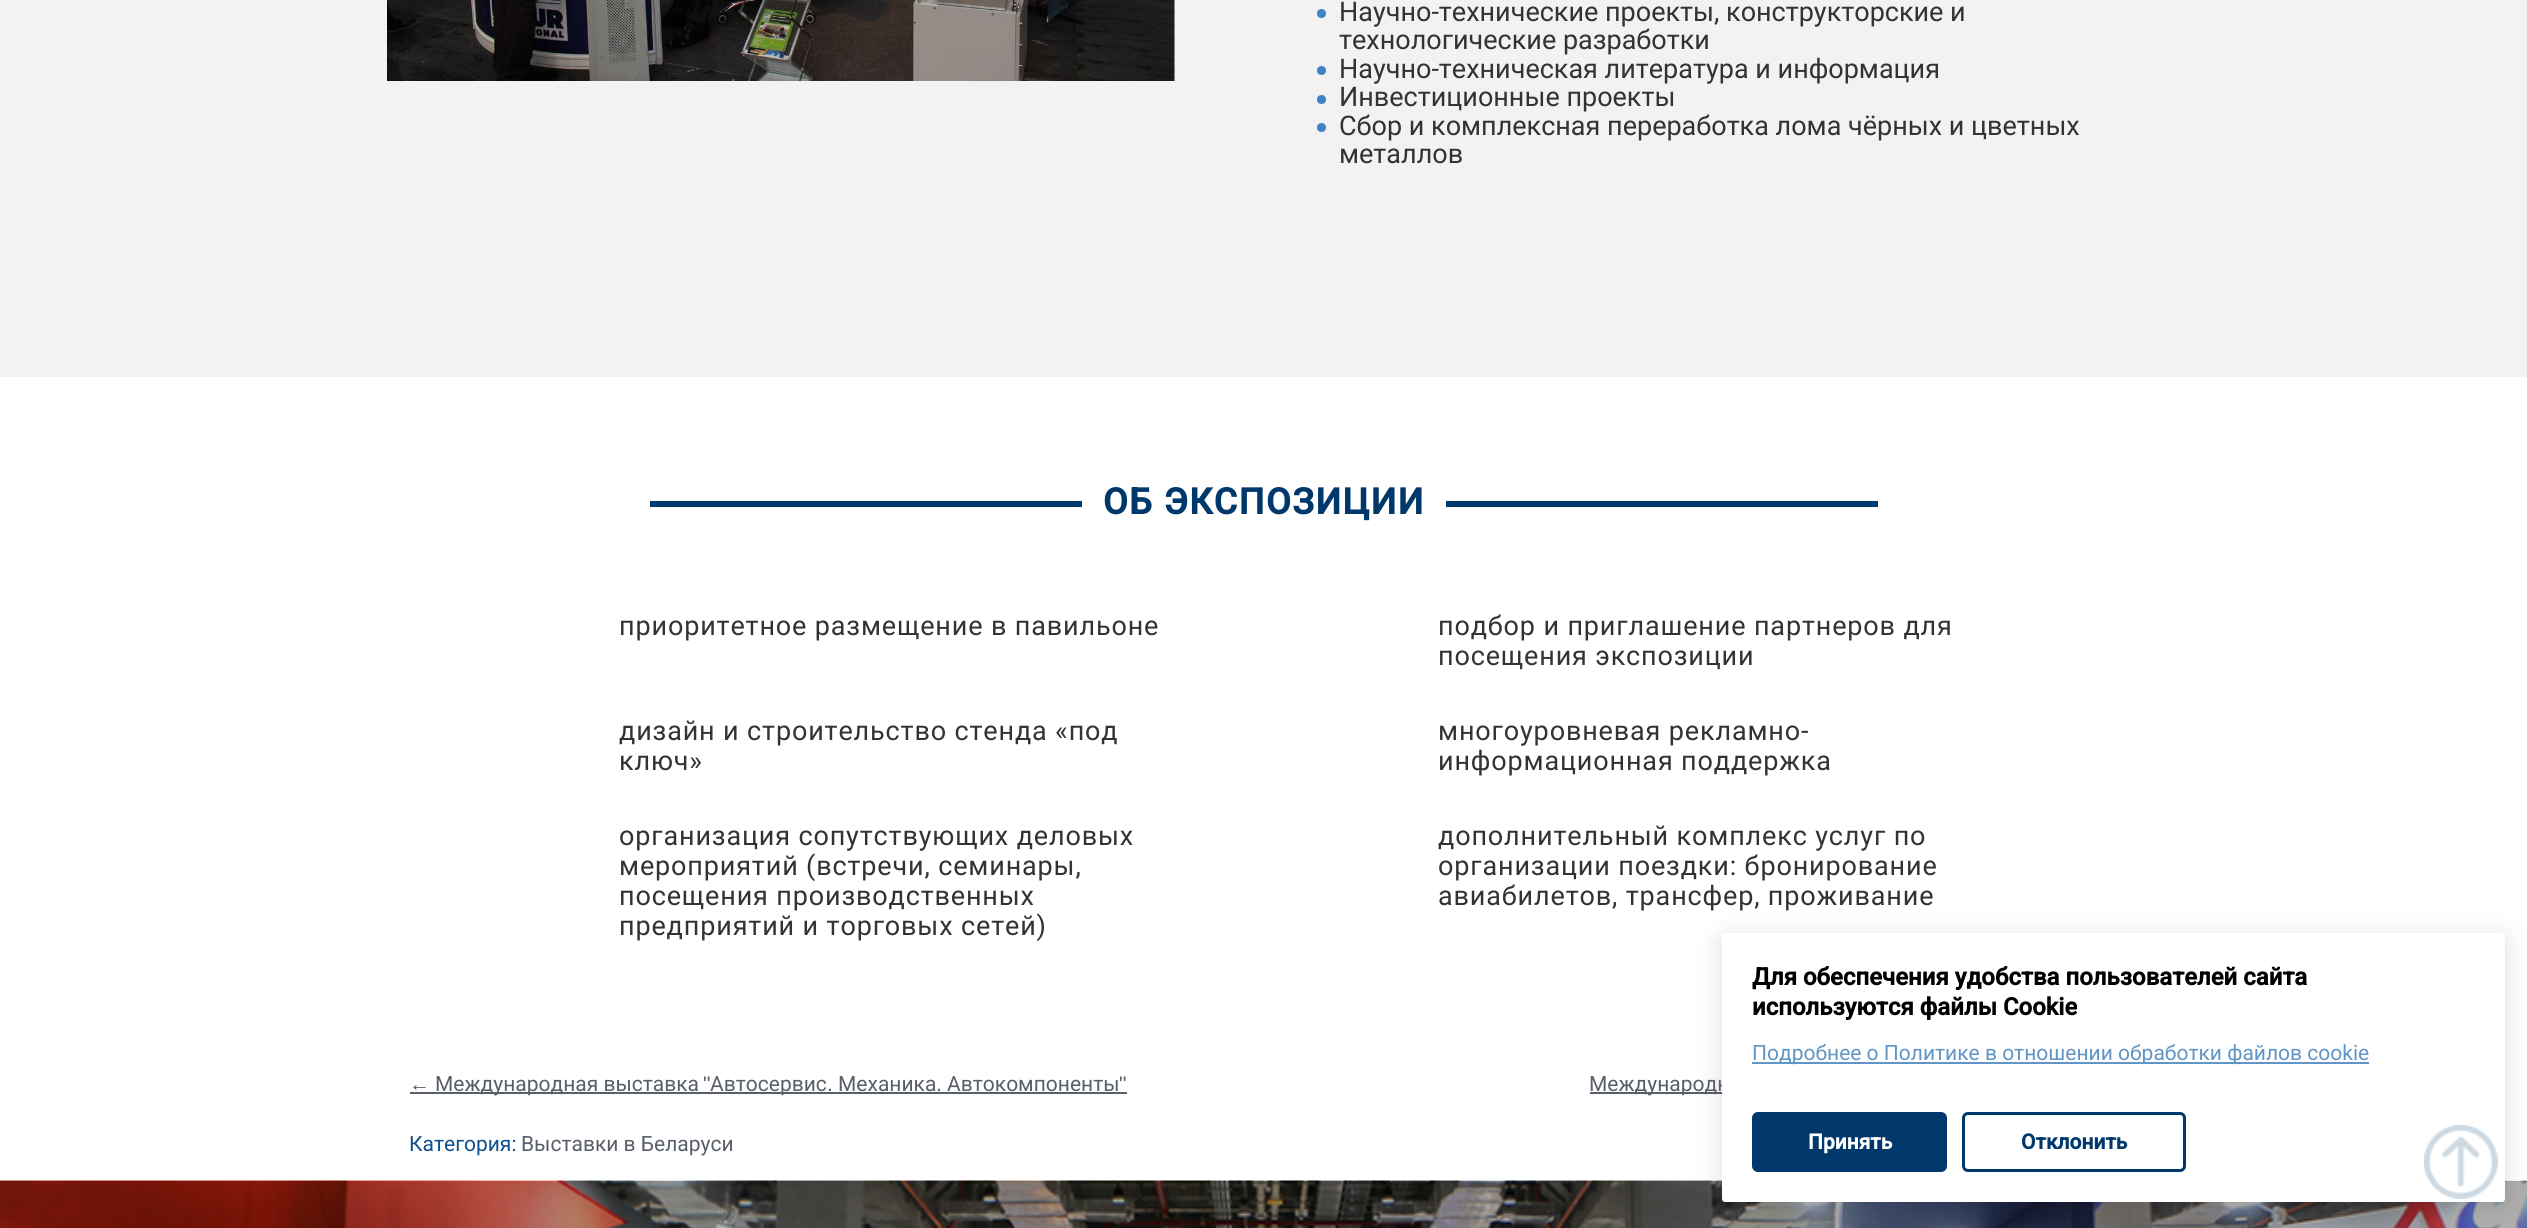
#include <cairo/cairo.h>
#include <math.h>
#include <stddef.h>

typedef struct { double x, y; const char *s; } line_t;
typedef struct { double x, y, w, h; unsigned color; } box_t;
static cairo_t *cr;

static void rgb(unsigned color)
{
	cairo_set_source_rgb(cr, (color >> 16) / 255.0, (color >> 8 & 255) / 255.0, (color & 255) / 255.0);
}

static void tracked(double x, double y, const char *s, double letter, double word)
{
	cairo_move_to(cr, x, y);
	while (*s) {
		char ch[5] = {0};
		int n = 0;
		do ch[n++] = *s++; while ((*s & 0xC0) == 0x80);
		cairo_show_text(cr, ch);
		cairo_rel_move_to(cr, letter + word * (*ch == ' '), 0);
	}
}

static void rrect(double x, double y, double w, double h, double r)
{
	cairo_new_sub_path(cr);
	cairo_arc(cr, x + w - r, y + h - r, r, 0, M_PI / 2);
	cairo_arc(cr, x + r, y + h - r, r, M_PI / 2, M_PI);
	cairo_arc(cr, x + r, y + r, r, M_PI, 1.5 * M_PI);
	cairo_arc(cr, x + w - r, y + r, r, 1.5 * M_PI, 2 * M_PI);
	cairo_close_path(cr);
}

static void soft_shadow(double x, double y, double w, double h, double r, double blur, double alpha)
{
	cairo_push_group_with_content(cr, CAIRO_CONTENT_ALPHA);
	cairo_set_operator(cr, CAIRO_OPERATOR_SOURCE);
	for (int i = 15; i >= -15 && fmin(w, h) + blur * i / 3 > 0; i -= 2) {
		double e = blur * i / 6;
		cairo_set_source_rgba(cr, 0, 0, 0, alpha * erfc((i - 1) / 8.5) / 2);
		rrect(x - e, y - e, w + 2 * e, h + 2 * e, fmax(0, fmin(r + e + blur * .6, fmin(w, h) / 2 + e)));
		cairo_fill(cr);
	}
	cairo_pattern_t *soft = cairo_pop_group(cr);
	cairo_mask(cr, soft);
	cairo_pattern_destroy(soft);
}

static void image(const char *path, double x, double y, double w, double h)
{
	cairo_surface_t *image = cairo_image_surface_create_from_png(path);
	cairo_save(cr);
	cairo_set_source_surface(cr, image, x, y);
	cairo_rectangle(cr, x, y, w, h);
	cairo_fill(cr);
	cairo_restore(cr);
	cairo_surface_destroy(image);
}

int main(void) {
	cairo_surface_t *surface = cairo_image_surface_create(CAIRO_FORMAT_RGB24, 2527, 1228);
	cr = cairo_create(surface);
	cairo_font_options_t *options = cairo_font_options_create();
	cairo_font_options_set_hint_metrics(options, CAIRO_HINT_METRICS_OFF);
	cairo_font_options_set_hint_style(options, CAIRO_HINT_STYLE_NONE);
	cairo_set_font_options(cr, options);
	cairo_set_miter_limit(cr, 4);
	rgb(0xffffff);
	cairo_paint(cr);
	rgb(0xf2f2f2);
	cairo_rectangle(cr, 0, 0, 2527, 377);
	cairo_fill(cr);
	image("img/1.png", 387, 0, 788, 81);
	rgb(0x3c84c3);
	cairo_arc(cr, 1321.5, 13.5, 4.5, 0, 2 * M_PI);
	cairo_fill(cr);
	cairo_arc(cr, 1321.5, 70.5, 4.5, 0, 2 * M_PI);
	cairo_fill(cr);
	cairo_arc(cr, 1321.5, 99.5, 4.5, 0, 2 * M_PI);
	cairo_fill(cr);
	cairo_arc(cr, 1321.5, 127.5, 4.5, 0, 2 * M_PI);
	cairo_fill(cr);
	{
		static const box_t items[] = {
			{650, 501, 1228, 6, 0x00386c},
			{1082, 501, 364, 6, 0xffffff},
			{410, 1092, 717, 2, 0x585f69},
			{1590, 1092, 132, 2, 0x585f69},
		};
		for (size_t i = 0; i < sizeof items / sizeof *items; i++) {
			rgb(items[i].color);
			cairo_rectangle(cr, items[i].x, items[i].y, items[i].w, items[i].h);
			cairo_fill(cr);
		}
	}
	image("img/2.png", 0, 1180, 2527, 48);
	rgb(0x000000);
	soft_shadow(1722, 938, 783, 268, 3, 13, 0.13);
	cairo_select_font_face(cr, "Roboto", CAIRO_FONT_SLANT_NORMAL, CAIRO_FONT_WEIGHT_NORMAL);
	cairo_set_font_size(cr, 27);
	rgb(0x333333);
	{
		static const line_t items[] = {
			{1339, 21, "Научно-технические проекты, конструкторские и"},
			{1339, 49, "технологические разработки"},
			{1339, 78, "Научно-техническая литература и информация"},
			{1339, 106, "Инвестиционные проекты"},
			{1339, 135, "Сбор и комплексная переработка лома чёрных и цветных"},
			{1339, 163, "металлов"},
		};
		for (size_t i = 0; i < sizeof items / sizeof *items; i++) {
			cairo_move_to(cr, items[i].x, items[i].y);
			cairo_show_text(cr, items[i].s);
		}
	}
	cairo_select_font_face(cr, "Roboto", CAIRO_FONT_SLANT_NORMAL, CAIRO_FONT_WEIGHT_BOLD);
	cairo_set_font_size(cr, 36);
	rgb(0x00386c);
	tracked(1103, 514, "ОБ ЭКСПОЗИЦИИ", 1.5, 0);
	cairo_select_font_face(cr, "Roboto", CAIRO_FONT_SLANT_NORMAL, CAIRO_FONT_WEIGHT_NORMAL);
	cairo_set_font_size(cr, 27);
	rgb(0x333333);
	{
		static const line_t items[] = {
			{619, 635, "приоритетное размещение в павильоне"},
			{1438, 635, "подбор и приглашение партнеров для"},
			{1438, 665, "посещения экспозиции"},
			{619, 740, "дизайн и строительство стенда «под"},
			{619, 770, "ключ»"},
			{1438, 740, "многоуровневая рекламно-"},
			{1438, 770, "информационная поддержка"},
			{619, 845, "организация сопутствующих деловых"},
			{619, 875, "мероприятий (встречи, семинары,"},
			{619, 905, "посещения производственных"},
			{619, 935, "предприятий и торговых сетей)"},
			{1438, 845, "дополнительный комплекс услуг по"},
			{1438, 875, "организации поездки: бронирование"},
			{1438, 905, "авиабилетов, трансфер, проживание"},
		};
		for (size_t i = 0; i < sizeof items / sizeof *items; i++) {
			tracked(items[i].x, items[i].y, items[i].s, 0.85, 0);
		}
	}
	cairo_set_font_size(cr, 21);
	rgb(0x585f69);
	cairo_move_to(cr, 435, 1091);
	cairo_show_text(cr, "Международная выставка");
	cairo_select_font_face(cr, "Liberation Sans", CAIRO_FONT_SLANT_NORMAL, CAIRO_FONT_WEIGHT_NORMAL);
	cairo_move_to(cr, 703, 1091);
	cairo_show_text(cr, "\"");
	cairo_select_font_face(cr, "Roboto", CAIRO_FONT_SLANT_NORMAL, CAIRO_FONT_WEIGHT_NORMAL);
	{
		static const line_t items[] = {
			{710, 1091, "Автосервис"},
			{838, 1091, "Механика"},
			{947, 1091, "Автокомпоненты"},
		};
		for (size_t i = 0; i < sizeof items / sizeof *items; i++) {
			cairo_move_to(cr, items[i].x, items[i].y);
			cairo_show_text(cr, items[i].s);
		}
	}
	cairo_select_font_face(cr, "Liberation Sans", CAIRO_FONT_SLANT_NORMAL, CAIRO_FONT_WEIGHT_NORMAL);
	{
		static const line_t items[] = {
			{1119, 1091, "\""},
			{409, 1091, "←"},
			{827, 1091, "."},
			{936, 1091, "."},
		};
		for (size_t i = 0; i < sizeof items / sizeof *items; i++) {
			cairo_move_to(cr, items[i].x, items[i].y);
			cairo_show_text(cr, items[i].s);
		}
	}
	cairo_select_font_face(cr, "Roboto", CAIRO_FONT_SLANT_NORMAL, CAIRO_FONT_WEIGHT_NORMAL);
	tracked(1589, 1091, "Международн", 0, -1);
	rgb(0x0d508d);
	cairo_move_to(cr, 409, 1151);
	cairo_show_text(cr, "Категория:");
	rgb(0x585f69);
	cairo_move_to(cr, 521, 1151);
	cairo_show_text(cr, "Выставки в Беларуси");
	rgb(0xffffff);
	rrect(1722, 933, 783, 269, 3);
	cairo_fill(cr);
	image("img/3.png", 2424, 1125, 74, 74);
	cairo_select_font_face(cr, "Roboto", CAIRO_FONT_SLANT_NORMAL, CAIRO_FONT_WEIGHT_BOLD);
	cairo_set_font_size(cr, 24);
	rgb(0x000000);
	cairo_move_to(cr, 1752, 985);
	cairo_show_text(cr, "Для обеспечения удобства пользователей сайта");
	cairo_move_to(cr, 1752, 1015);
	cairo_show_text(cr, "используются файлы Cookie");
	rgb(0x6195c5);
	cairo_rectangle(cr, 1752, 1062, 617, 2);
	cairo_fill(cr);
	cairo_select_font_face(cr, "Roboto", CAIRO_FONT_SLANT_NORMAL, CAIRO_FONT_WEIGHT_NORMAL);
	cairo_set_font_size(cr, 21);
	cairo_move_to(cr, 1752, 1060);
	cairo_show_text(cr, "Подробнее о Политике в отношении обработки файлов cookie");
	rgb(0x00386c);
	rrect(1752, 1112, 195, 60, 6);
	cairo_fill(cr);
	cairo_select_font_face(cr, "Roboto", CAIRO_FONT_SLANT_NORMAL, CAIRO_FONT_WEIGHT_BOLD);
	rgb(0xffffff);
	cairo_move_to(cr, 1808, 1149);
	cairo_show_text(cr, "Принять");
	rrect(1963.5, 1113.5, 221, 57, 4.5);
	rgb(0x00386c);
	cairo_set_line_width(cr, 3);
	cairo_stroke(cr);
	cairo_move_to(cr, 2021, 1149);
	cairo_show_text(cr, "Отклонить");
	cairo_surface_write_to_png(surface, "page.png");
	cairo_font_options_destroy(options);
	cairo_destroy(cr);
	cairo_surface_destroy(surface);
	return 0;
}
